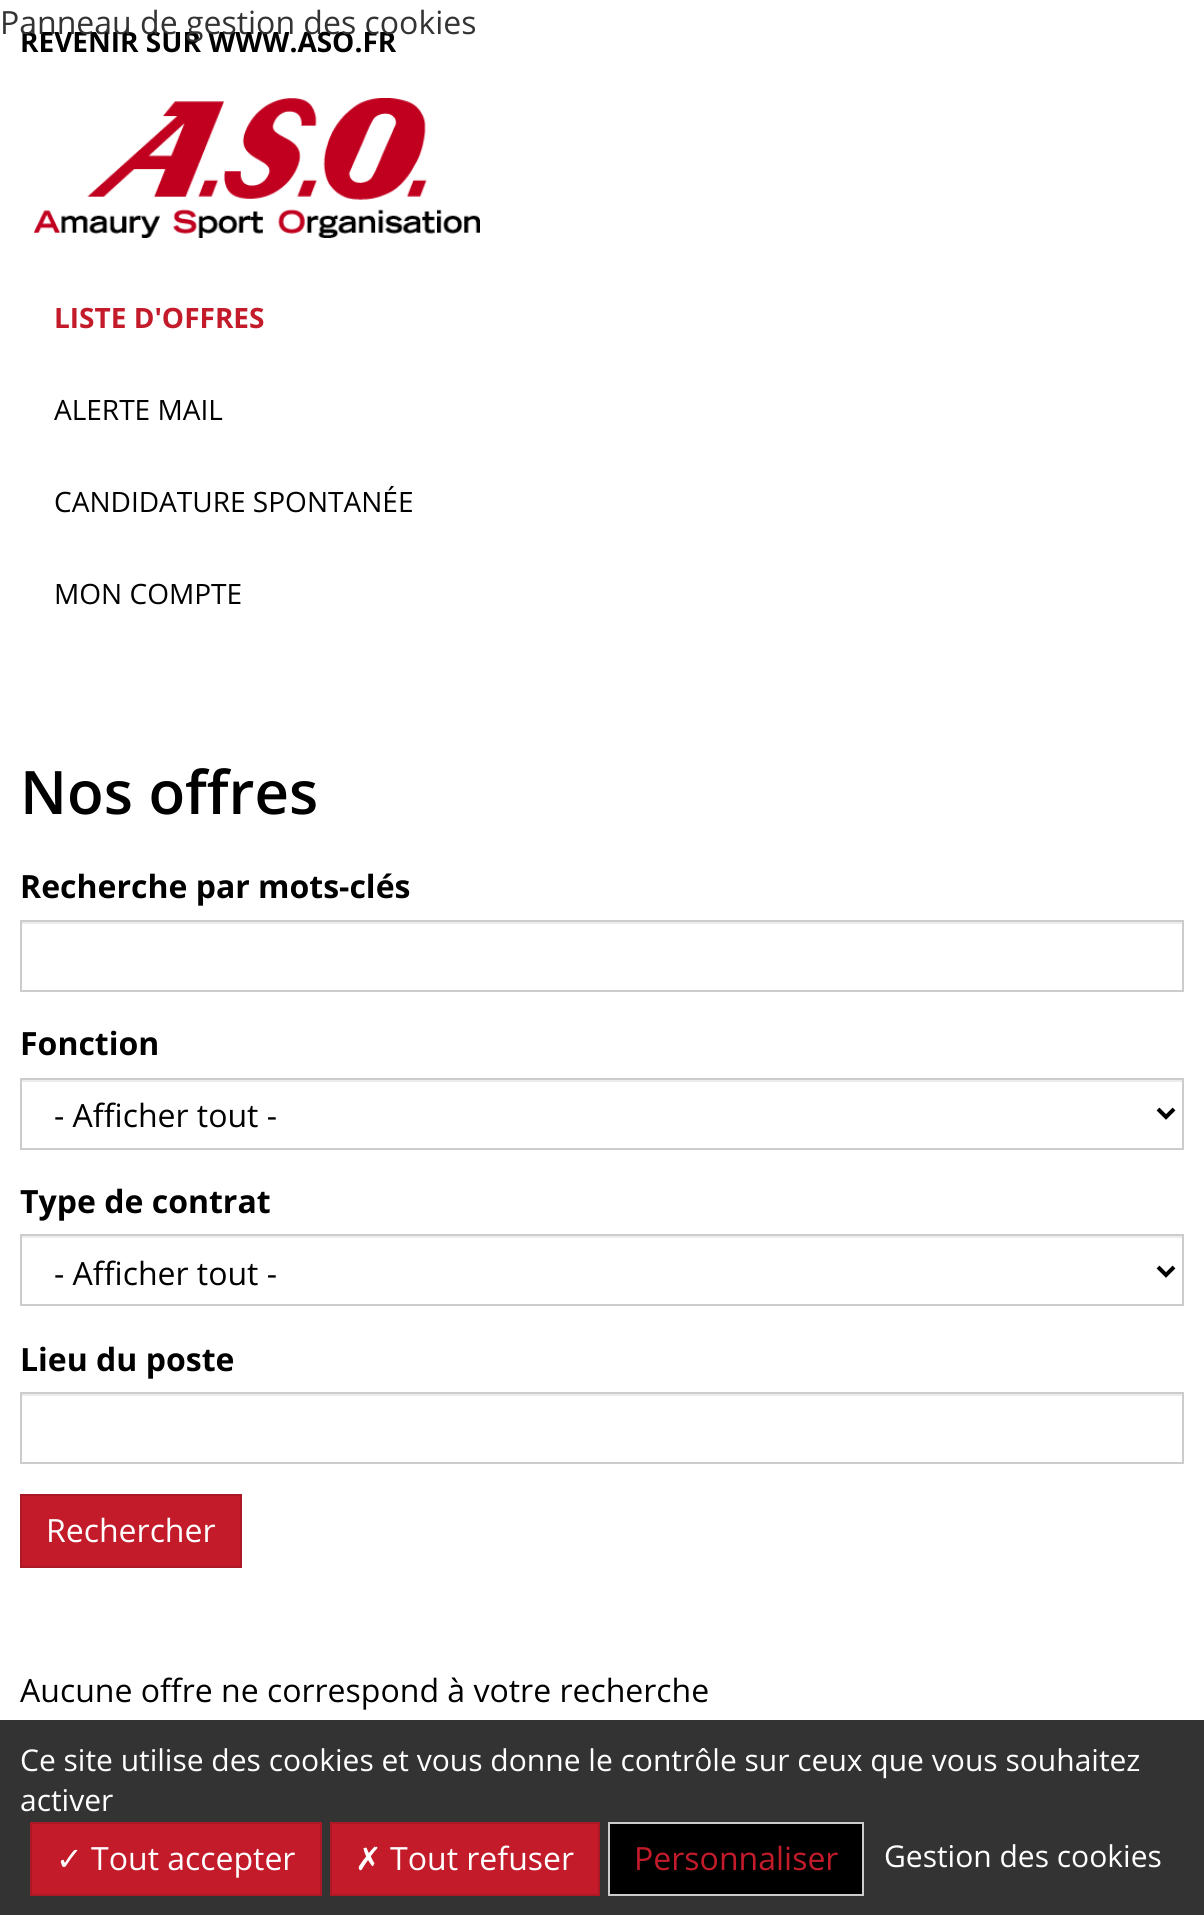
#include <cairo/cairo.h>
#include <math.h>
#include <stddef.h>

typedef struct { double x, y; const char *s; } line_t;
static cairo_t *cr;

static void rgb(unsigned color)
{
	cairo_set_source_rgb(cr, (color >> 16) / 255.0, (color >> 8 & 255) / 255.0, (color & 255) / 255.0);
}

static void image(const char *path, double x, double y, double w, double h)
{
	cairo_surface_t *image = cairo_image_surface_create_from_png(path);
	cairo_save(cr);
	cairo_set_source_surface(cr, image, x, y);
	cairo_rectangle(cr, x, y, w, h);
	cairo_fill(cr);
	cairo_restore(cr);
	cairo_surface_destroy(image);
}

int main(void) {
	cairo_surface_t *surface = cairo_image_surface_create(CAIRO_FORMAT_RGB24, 1204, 1915);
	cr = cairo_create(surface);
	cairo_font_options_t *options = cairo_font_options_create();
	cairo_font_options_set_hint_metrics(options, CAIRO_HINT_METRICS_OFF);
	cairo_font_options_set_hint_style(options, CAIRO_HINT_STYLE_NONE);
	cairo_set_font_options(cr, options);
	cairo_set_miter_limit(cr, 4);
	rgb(0xffffff);
	cairo_paint(cr);
	rgb(0x333333);
	cairo_rectangle(cr, 0, 1720, 1204, 195);
	cairo_fill(cr);
	rgb(0xc31b2a);
	cairo_rectangle(cr, 31, 1823, 290, 72);
	cairo_fill_preserve(cr);
	rgb(0xad1825);
	cairo_stroke(cr);
	rgb(0xc31b2a);
	cairo_rectangle(cr, 331, 1823, 268, 72);
	cairo_fill_preserve(cr);
	rgb(0xad1825);
	cairo_stroke(cr);
	rgb(0x000000);
	cairo_rectangle(cr, 609, 1823, 254, 72);
	cairo_fill_preserve(cr);
	rgb(0xcccccc);
	cairo_stroke(cr);
	image("img/1.png", 34, 98, 446, 140);
	rgb(0xececec);
	cairo_rectangle(cr, 22, 922, 1160, 2);
	cairo_fill(cr);
	cairo_rectangle(cr, 21, 921, 1162, 70);
	rgb(0xcccccc);
	cairo_stroke(cr);
	rgb(0xececec);
	cairo_rectangle(cr, 22, 1080, 1160, 2);
	cairo_fill(cr);
	cairo_rectangle(cr, 21, 1079, 1162, 70);
	rgb(0xcccccc);
	cairo_stroke(cr);
	cairo_new_path(cr);
	cairo_move_to(cr, 1158, 1109);
	cairo_line_to(cr, 1166, 1117);
	cairo_line_to(cr, 1174, 1109);
	rgb(0x000000);
	cairo_set_line_width(cr, 4);
	cairo_stroke(cr);
	rgb(0xececec);
	cairo_rectangle(cr, 22, 1236, 1160, 2);
	cairo_fill(cr);
	cairo_rectangle(cr, 21, 1235, 1162, 70);
	rgb(0xcccccc);
	cairo_set_line_width(cr, 2);
	cairo_stroke(cr);
	cairo_new_path(cr);
	cairo_move_to(cr, 1158, 1267);
	cairo_line_to(cr, 1166, 1275);
	cairo_line_to(cr, 1174, 1267);
	rgb(0x000000);
	cairo_set_line_width(cr, 4);
	cairo_stroke(cr);
	rgb(0xececec);
	cairo_rectangle(cr, 22, 1394, 1160, 2);
	cairo_fill(cr);
	cairo_rectangle(cr, 21, 1393, 1162, 70);
	rgb(0xcccccc);
	cairo_set_line_width(cr, 2);
	cairo_stroke(cr);
	rgb(0xc31b2a);
	cairo_rectangle(cr, 21, 1495, 220, 72);
	cairo_fill_preserve(cr);
	rgb(0xad1825);
	cairo_stroke(cr);
	cairo_select_font_face(cr, "Open Sans", CAIRO_FONT_SLANT_NORMAL, CAIRO_FONT_WEIGHT_NORMAL);
	cairo_set_font_size(cr, 30);
	rgb(0xffffff);
	cairo_move_to(cr, 20, 1771);
	cairo_show_text(cr, "Ce site utilise des cookies et vous donne le contrôle sur ceux que vous souhaitez");
	cairo_move_to(cr, 20, 1811);
	cairo_show_text(cr, "activer");
	cairo_select_font_face(cr, "DejaVu Sans", CAIRO_FONT_SLANT_NORMAL, CAIRO_FONT_WEIGHT_NORMAL);
	cairo_set_font_size(cr, 32);
	cairo_move_to(cr, 56, 1870);
	cairo_show_text(cr, "✓");
	cairo_select_font_face(cr, "Open Sans", CAIRO_FONT_SLANT_NORMAL, CAIRO_FONT_WEIGHT_NORMAL);
	cairo_move_to(cr, 91, 1870);
	cairo_show_text(cr, "Tout accepter");
	cairo_select_font_face(cr, "DejaVu Sans", CAIRO_FONT_SLANT_NORMAL, CAIRO_FONT_WEIGHT_NORMAL);
	cairo_move_to(cr, 355, 1870);
	cairo_show_text(cr, "✗");
	cairo_select_font_face(cr, "Open Sans", CAIRO_FONT_SLANT_NORMAL, CAIRO_FONT_WEIGHT_NORMAL);
	cairo_move_to(cr, 390, 1870);
	cairo_show_text(cr, "Tout refuser");
	rgb(0xc31b2a);
	cairo_move_to(cr, 634, 1870);
	cairo_show_text(cr, "Personnaliser");
	cairo_set_font_size(cr, 30);
	rgb(0xffffff);
	cairo_move_to(cr, 884, 1867);
	cairo_show_text(cr, "Gestion des cookies");
	cairo_select_font_face(cr, "Open Sans", CAIRO_FONT_SLANT_NORMAL, CAIRO_FONT_WEIGHT_BOLD);
	cairo_set_font_size(cr, 28);
	rgb(0x000000);
	cairo_move_to(cr, 20, 52);
	cairo_show_text(cr, "REVENIR SUR WWW.ASO.FR");
	cairo_select_font_face(cr, "Open Sans", CAIRO_FONT_SLANT_NORMAL, CAIRO_FONT_WEIGHT_NORMAL);
	cairo_set_font_size(cr, 32);
	rgb(0x333333);
	cairo_move_to(cr, 0, 34);
	cairo_show_text(cr, "Panneau de gestion des cookies");
	cairo_select_font_face(cr, "Open Sans", CAIRO_FONT_SLANT_NORMAL, CAIRO_FONT_WEIGHT_BOLD);
	cairo_set_font_size(cr, 28);
	rgb(0xc31b2a);
	cairo_move_to(cr, 54, 328);
	cairo_show_text(cr, "LISTE D'OFFRES");
	cairo_select_font_face(cr, "Open Sans", CAIRO_FONT_SLANT_NORMAL, CAIRO_FONT_WEIGHT_NORMAL);
	rgb(0x000000);
	{
		static const line_t items[] = {
			{54, 420, "ALERTE MAIL"},
			{54, 512, "CANDIDATURE SPONTANÉE"},
			{54, 604, "MON COMPTE"},
		};
		for (size_t i = 0; i < sizeof items / sizeof *items; i++) {
			cairo_move_to(cr, items[i].x, items[i].y);
			cairo_show_text(cr, items[i].s);
		}
	}
	cairo_select_font_face(cr, "Open Sans SemiBold", CAIRO_FONT_SLANT_NORMAL, CAIRO_FONT_WEIGHT_NORMAL);
	cairo_set_font_size(cr, 60);
	cairo_move_to(cr, 20, 814);
	cairo_show_text(cr, "Nos offres");
	cairo_select_font_face(cr, "Open Sans", CAIRO_FONT_SLANT_NORMAL, CAIRO_FONT_WEIGHT_BOLD);
	cairo_set_font_size(cr, 32);
	cairo_move_to(cr, 20, 898);
	cairo_show_text(cr, "Recherche par mots-clés");
	cairo_move_to(cr, 20, 1055);
	cairo_show_text(cr, "Fonction");
	cairo_select_font_face(cr, "Open Sans", CAIRO_FONT_SLANT_NORMAL, CAIRO_FONT_WEIGHT_NORMAL);
	cairo_move_to(cr, 54, 1127);
	cairo_show_text(cr, "- Afficher tout -");
	cairo_select_font_face(cr, "Open Sans", CAIRO_FONT_SLANT_NORMAL, CAIRO_FONT_WEIGHT_BOLD);
	cairo_move_to(cr, 20, 1213);
	cairo_show_text(cr, "Type de contrat");
	cairo_select_font_face(cr, "Open Sans", CAIRO_FONT_SLANT_NORMAL, CAIRO_FONT_WEIGHT_NORMAL);
	cairo_move_to(cr, 54, 1285);
	cairo_show_text(cr, "- Afficher tout -");
	cairo_select_font_face(cr, "Open Sans", CAIRO_FONT_SLANT_NORMAL, CAIRO_FONT_WEIGHT_BOLD);
	cairo_move_to(cr, 20, 1371);
	cairo_show_text(cr, "Lieu du poste");
	cairo_select_font_face(cr, "Open Sans", CAIRO_FONT_SLANT_NORMAL, CAIRO_FONT_WEIGHT_NORMAL);
	rgb(0xffffff);
	cairo_move_to(cr, 46, 1542);
	cairo_show_text(cr, "Rechercher");
	rgb(0x000000);
	cairo_move_to(cr, 20, 1702);
	cairo_show_text(cr, "Aucune offre ne correspond à votre recherche");
	cairo_surface_write_to_png(surface, "page.png");
	cairo_font_options_destroy(options);
	cairo_destroy(cr);
	cairo_surface_destroy(surface);
	return 0;
}
